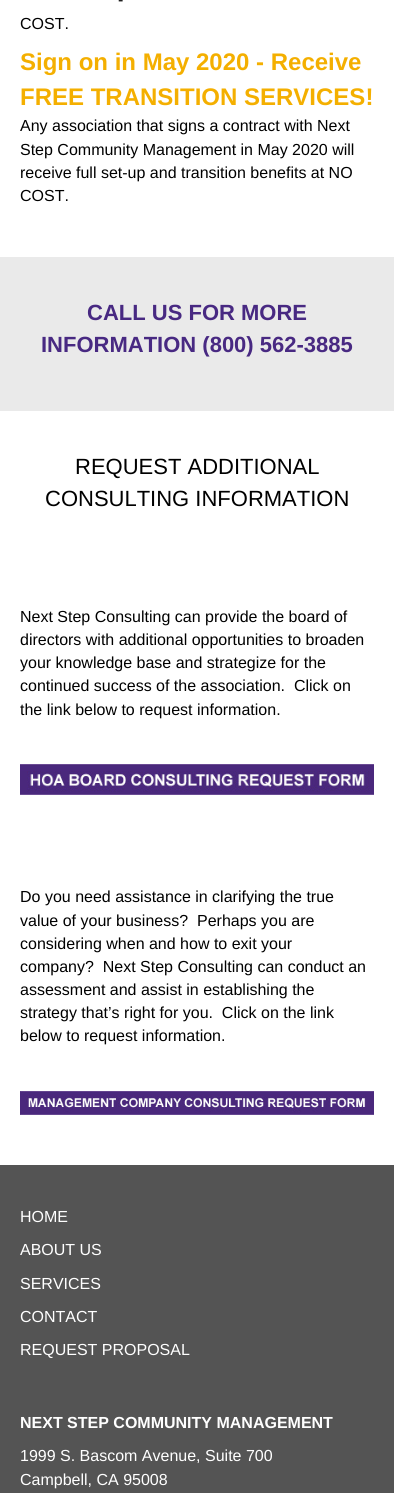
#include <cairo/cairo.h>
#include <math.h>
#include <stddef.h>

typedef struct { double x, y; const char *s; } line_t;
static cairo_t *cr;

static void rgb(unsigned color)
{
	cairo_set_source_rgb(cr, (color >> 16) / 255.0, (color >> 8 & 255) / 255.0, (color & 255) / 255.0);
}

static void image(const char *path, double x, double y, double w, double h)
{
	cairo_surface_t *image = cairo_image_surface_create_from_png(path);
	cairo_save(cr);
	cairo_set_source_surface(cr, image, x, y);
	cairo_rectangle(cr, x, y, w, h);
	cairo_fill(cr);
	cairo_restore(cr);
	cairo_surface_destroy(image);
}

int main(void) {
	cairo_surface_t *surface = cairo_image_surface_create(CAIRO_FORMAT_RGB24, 394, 1493);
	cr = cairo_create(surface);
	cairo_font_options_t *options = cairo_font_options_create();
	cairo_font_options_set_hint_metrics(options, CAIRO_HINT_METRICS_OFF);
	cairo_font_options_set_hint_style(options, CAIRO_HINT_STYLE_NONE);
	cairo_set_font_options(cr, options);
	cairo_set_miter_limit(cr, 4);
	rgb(0xffffff);
	cairo_paint(cr);
	rgb(0xeaeaea);
	cairo_rectangle(cr, 0, 257, 394, 154);
	cairo_fill(cr);
	image("img/1.png", 20, 764, 354, 31);
	image("img/2.png", 20, 1091, 354, 24);
	rgb(0x545454);
	cairo_rectangle(cr, 0, 1165, 394, 328);
	cairo_fill(cr);
	cairo_select_font_face(cr, "Liberation Sans", CAIRO_FONT_SLANT_NORMAL, CAIRO_FONT_WEIGHT_NORMAL);
	cairo_set_font_size(cr, 16);
	rgb(0x000000);
	cairo_move_to(cr, 118, 5);
	cairo_show_text(cr, "-");
	cairo_move_to(cr, 20, 29);
	cairo_show_text(cr, "COST.");
	cairo_select_font_face(cr, "Liberation Sans", CAIRO_FONT_SLANT_NORMAL, CAIRO_FONT_WEIGHT_BOLD);
	cairo_set_font_size(cr, 24);
	rgb(0xf4af00);
	cairo_move_to(cr, 20, 70);
	cairo_show_text(cr, "Sign on in May 2020 - Receive");
	cairo_move_to(cr, 20, 105);
	cairo_show_text(cr, "FREE TRANSITION SERVICES!");
	cairo_select_font_face(cr, "Liberation Sans", CAIRO_FONT_SLANT_NORMAL, CAIRO_FONT_WEIGHT_NORMAL);
	cairo_set_font_size(cr, 16);
	rgb(0x000000);
	{
		static const line_t items[] = {
			{20, 131, "Any association that signs a contract with Next"},
			{20, 155, "Step Community Management in May 2020 will"},
			{20, 178, "receive full set-up and transition benefits at NO"},
			{20, 201, "COST."},
		};
		for (size_t i = 0; i < sizeof items / sizeof *items; i++) {
			cairo_move_to(cr, items[i].x, items[i].y);
			cairo_show_text(cr, items[i].s);
		}
	}
	cairo_select_font_face(cr, "Liberation Sans", CAIRO_FONT_SLANT_NORMAL, CAIRO_FONT_WEIGHT_BOLD);
	cairo_set_font_size(cr, 22);
	rgb(0x482982);
	cairo_move_to(cr, 87, 320);
	cairo_show_text(cr, "CALL US FOR MORE");
	cairo_move_to(cr, 41, 352);
	cairo_show_text(cr, "INFORMATION (800) 562-3885");
	cairo_select_font_face(cr, "Liberation Sans", CAIRO_FONT_SLANT_NORMAL, CAIRO_FONT_WEIGHT_NORMAL);
	rgb(0x000000);
	cairo_move_to(cr, 75, 474);
	cairo_show_text(cr, "REQUEST ADDITIONAL");
	cairo_move_to(cr, 45, 506);
	cairo_show_text(cr, "CONSULTING INFORMATION");
	cairo_set_font_size(cr, 16);
	{
		static const line_t items[] = {
			{20, 622, "Next Step Consulting can provide the board of"},
			{20, 645, "directors with additional opportunities to broaden"},
			{20, 668, "your knowledge base and strategize for the"},
			{20, 691, "continued success of the association.  Click on"},
			{20, 715, "the link below to request information."},
			{20, 902, "Do you need assistance in clarifying the true"},
			{20, 926, "value of your business?  Perhaps you are"},
			{20, 949, "considering when and how to exit your"},
			{20, 972, "company?  Next Step Consulting can conduct an"},
			{20, 995, "assessment and assist in establishing the"},
			{20, 1018, "strategy that’s right for you.  Click on the link"},
			{20, 1041, "below to request information."},
		};
		for (size_t i = 0; i < sizeof items / sizeof *items; i++) {
			cairo_move_to(cr, items[i].x, items[i].y);
			cairo_show_text(cr, items[i].s);
		}
	}
	rgb(0xffffff);
	{
		static const line_t items[] = {
			{20, 1222, "HOME"},
			{20, 1255, "ABOUT US"},
			{20, 1289, "SERVICES"},
			{20, 1322, "CONTACT"},
			{20, 1355, "REQUEST PROPOSAL"},
		};
		for (size_t i = 0; i < sizeof items / sizeof *items; i++) {
			cairo_move_to(cr, items[i].x, items[i].y);
			cairo_show_text(cr, items[i].s);
		}
	}
	cairo_select_font_face(cr, "Liberation Sans", CAIRO_FONT_SLANT_NORMAL, CAIRO_FONT_WEIGHT_BOLD);
	cairo_move_to(cr, 20, 1428);
	cairo_show_text(cr, "NEXT STEP COMMUNITY MANAGEMENT");
	cairo_select_font_face(cr, "Liberation Sans", CAIRO_FONT_SLANT_NORMAL, CAIRO_FONT_WEIGHT_NORMAL);
	cairo_move_to(cr, 20, 1461);
	cairo_show_text(cr, "1999 S. Bascom Avenue, Suite 700");
	cairo_move_to(cr, 20, 1485);
	cairo_show_text(cr, "Campbell, CA 95008");
	cairo_surface_write_to_png(surface, "page.png");
	cairo_font_options_destroy(options);
	cairo_destroy(cr);
	cairo_surface_destroy(surface);
	return 0;
}
